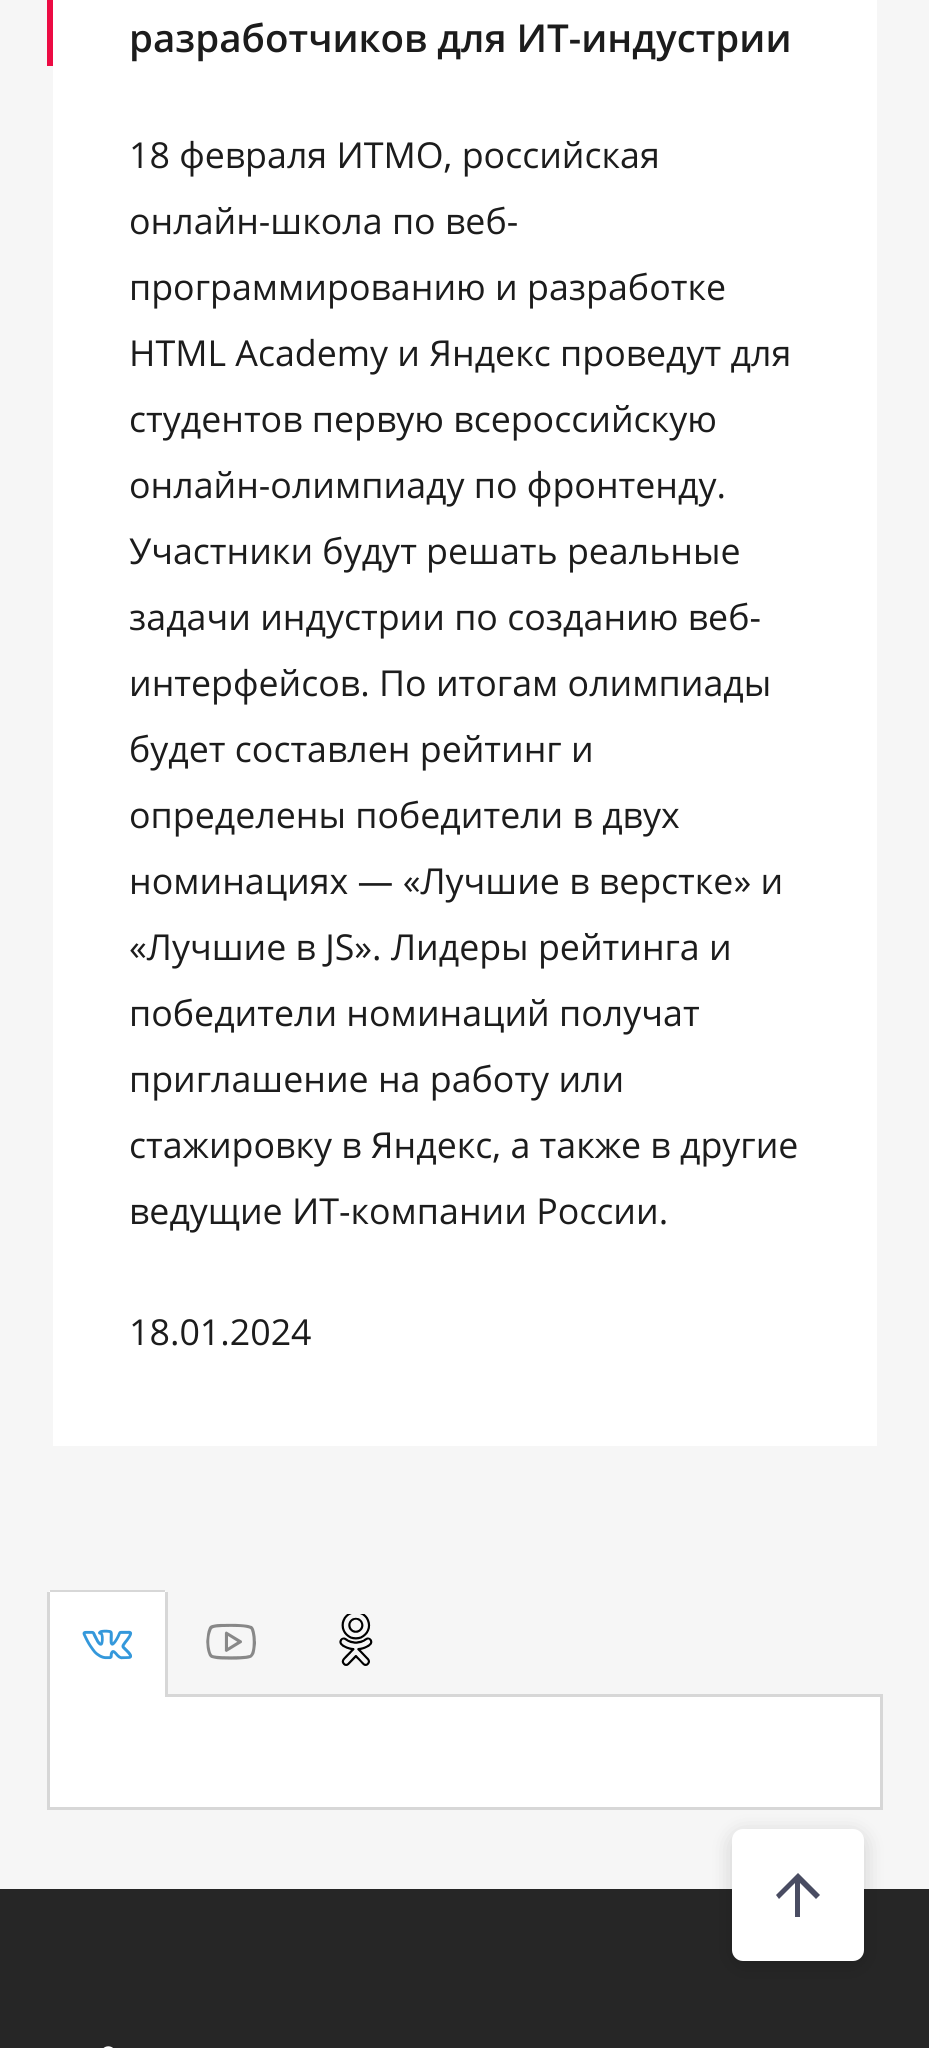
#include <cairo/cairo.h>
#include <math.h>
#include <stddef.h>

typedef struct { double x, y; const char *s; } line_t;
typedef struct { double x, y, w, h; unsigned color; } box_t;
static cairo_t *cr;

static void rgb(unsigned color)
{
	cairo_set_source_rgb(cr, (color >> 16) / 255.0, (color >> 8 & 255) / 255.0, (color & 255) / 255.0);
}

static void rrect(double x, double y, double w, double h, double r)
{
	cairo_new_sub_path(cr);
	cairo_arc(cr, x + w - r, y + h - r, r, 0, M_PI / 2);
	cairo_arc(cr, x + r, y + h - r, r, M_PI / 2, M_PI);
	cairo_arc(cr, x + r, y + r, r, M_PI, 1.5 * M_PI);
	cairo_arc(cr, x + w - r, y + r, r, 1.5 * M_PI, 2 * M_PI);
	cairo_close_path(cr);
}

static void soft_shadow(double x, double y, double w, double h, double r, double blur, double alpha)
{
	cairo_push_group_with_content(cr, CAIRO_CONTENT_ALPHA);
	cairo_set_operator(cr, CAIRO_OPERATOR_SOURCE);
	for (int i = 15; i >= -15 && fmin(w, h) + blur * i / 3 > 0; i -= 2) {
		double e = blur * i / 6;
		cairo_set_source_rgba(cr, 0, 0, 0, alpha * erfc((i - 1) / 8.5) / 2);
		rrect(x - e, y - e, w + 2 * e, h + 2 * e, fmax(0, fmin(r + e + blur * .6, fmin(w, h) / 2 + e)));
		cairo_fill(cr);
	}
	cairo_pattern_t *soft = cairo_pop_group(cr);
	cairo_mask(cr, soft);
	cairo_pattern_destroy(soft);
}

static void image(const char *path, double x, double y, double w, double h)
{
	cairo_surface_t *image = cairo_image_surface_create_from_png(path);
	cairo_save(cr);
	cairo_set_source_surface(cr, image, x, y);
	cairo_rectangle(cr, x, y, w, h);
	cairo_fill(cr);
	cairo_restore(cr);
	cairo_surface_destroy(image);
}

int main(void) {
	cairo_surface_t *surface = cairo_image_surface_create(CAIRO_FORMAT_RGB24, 929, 2048);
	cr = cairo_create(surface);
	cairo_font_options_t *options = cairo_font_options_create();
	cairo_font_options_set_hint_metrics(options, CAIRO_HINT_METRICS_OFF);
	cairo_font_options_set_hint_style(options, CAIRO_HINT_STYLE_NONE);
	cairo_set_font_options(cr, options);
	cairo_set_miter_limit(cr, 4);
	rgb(0xf6f6f6);
	cairo_paint(cr);
	rgb(0xffffff);
	cairo_rectangle(cr, 53, 0, 824, 1446);
	cairo_fill(cr);
	rgb(0xec0b43);
	cairo_rectangle(cr, 47, 0, 6, 66);
	cairo_fill(cr);
	rgb(0xffffff);
	cairo_rectangle(cr, 48.5, 1695.5, 833, 113);
	cairo_fill_preserve(cr);
	rgb(0xd7d7d7);
	cairo_set_line_width(cr, 3);
	cairo_stroke(cr);
	rgb(0xffffff);
	cairo_new_path(cr);
	cairo_move_to(cr, 53, 1590);
	cairo_line_to(cr, 162, 1590);
	cairo_curve_to(cr, 165.5, 1590, 168, 1592.5, 168, 1596);
	cairo_line_to(cr, 168, 1697);
	cairo_line_to(cr, 47, 1697);
	cairo_line_to(cr, 47, 1596);
	cairo_curve_to(cr, 47, 1592.5, 49.5, 1590, 53, 1590);
	cairo_close_path(cr);
	cairo_fill(cr);
	{
		static const box_t items[] = {
			{50, 1590, 115, 2, 0xd7d7d7},
			{165, 1592, 3, 105, 0xd7d7d7},
			{47, 1592, 3, 105, 0xd7d7d7},
		};
		for (size_t i = 0; i < sizeof items / sizeof *items; i++) {
			rgb(items[i].color);
			cairo_rectangle(cr, items[i].x, items[i].y, items[i].w, items[i].h);
			cairo_fill(cr);
		}
	}
	image("img/1.png", 82, 1629, 51, 31);
	image("img/2.png", 206, 1623, 50, 37);
	image("img/3.png", 339, 1614, 34, 52);
	rgb(0x262626);
	cairo_rectangle(cr, 0, 1889, 929, 159);
	cairo_fill(cr);
	rgb(0x000000);
	soft_shadow(732, 1834, 132, 132, 11, 11, 0.16);
	rgb(0xffffff);
	rrect(732, 1829, 132, 132, 11);
	cairo_fill(cr);
	rgb(0x494c62);
	cairo_new_path(cr);
	cairo_move_to(cr, 776, 1895);
	cairo_line_to(cr, 779, 1899);
	cairo_line_to(cr, 795, 1883);
	cairo_line_to(cr, 795, 1917);
	cairo_line_to(cr, 800, 1917);
	cairo_line_to(cr, 800, 1883);
	cairo_line_to(cr, 816, 1899);
	cairo_line_to(cr, 820, 1895);
	cairo_line_to(cr, 798, 1873);
	cairo_close_path(cr);
	cairo_fill(cr);
	image("img/4.png", 103, 2046, 10, 2);
	cairo_select_font_face(cr, "Open Sans SemiBold", CAIRO_FONT_SLANT_NORMAL, CAIRO_FONT_WEIGHT_NORMAL);
	cairo_set_font_size(cr, 38.5);
	rgb(0x1c1c1c);
	cairo_move_to(cr, 129, 52);
	cairo_show_text(cr, "разработчиков для ИТ-индустрии");
	cairo_select_font_face(cr, "Open Sans", CAIRO_FONT_SLANT_NORMAL, CAIRO_FONT_WEIGHT_NORMAL);
	cairo_set_font_size(cr, 35.75);
	{
		static const line_t items[] = {
			{129, 168, "18 февраля ИТМО, российская"},
			{129, 234, "онлайн-школа по веб-"},
			{129, 300, "программированию и разработке"},
			{129, 366, "HTML Academy и Яндекс проведут для"},
			{129, 432, "студентов первую всероссийскую"},
			{129, 498, "онлайн-олимпиаду по фронтенду."},
			{129, 564, "Участники будут решать реальные"},
			{129, 630, "задачи индустрии по созданию веб-"},
			{129, 696, "интерфейсов. По итогам олимпиады"},
			{129, 762, "будет составлен рейтинг и"},
			{129, 828, "определены победители в двух"},
			{129, 894, "номинациях — «Лучшие в верстке» и"},
			{129, 960, "«Лучшие в JS». Лидеры рейтинга и"},
			{129, 1026, "победители номинаций получат"},
			{129, 1092, "приглашение на работу или"},
			{129, 1158, "стажировку в Яндекс, а также в другие"},
			{129, 1224, "ведущие ИТ-компании России."},
			{129, 1345, "18.01.2024"},
		};
		for (size_t i = 0; i < sizeof items / sizeof *items; i++) {
			cairo_move_to(cr, items[i].x, items[i].y);
			cairo_show_text(cr, items[i].s);
		}
	}
	cairo_surface_write_to_png(surface, "page.png");
	cairo_font_options_destroy(options);
	cairo_destroy(cr);
	cairo_surface_destroy(surface);
	return 0;
}
